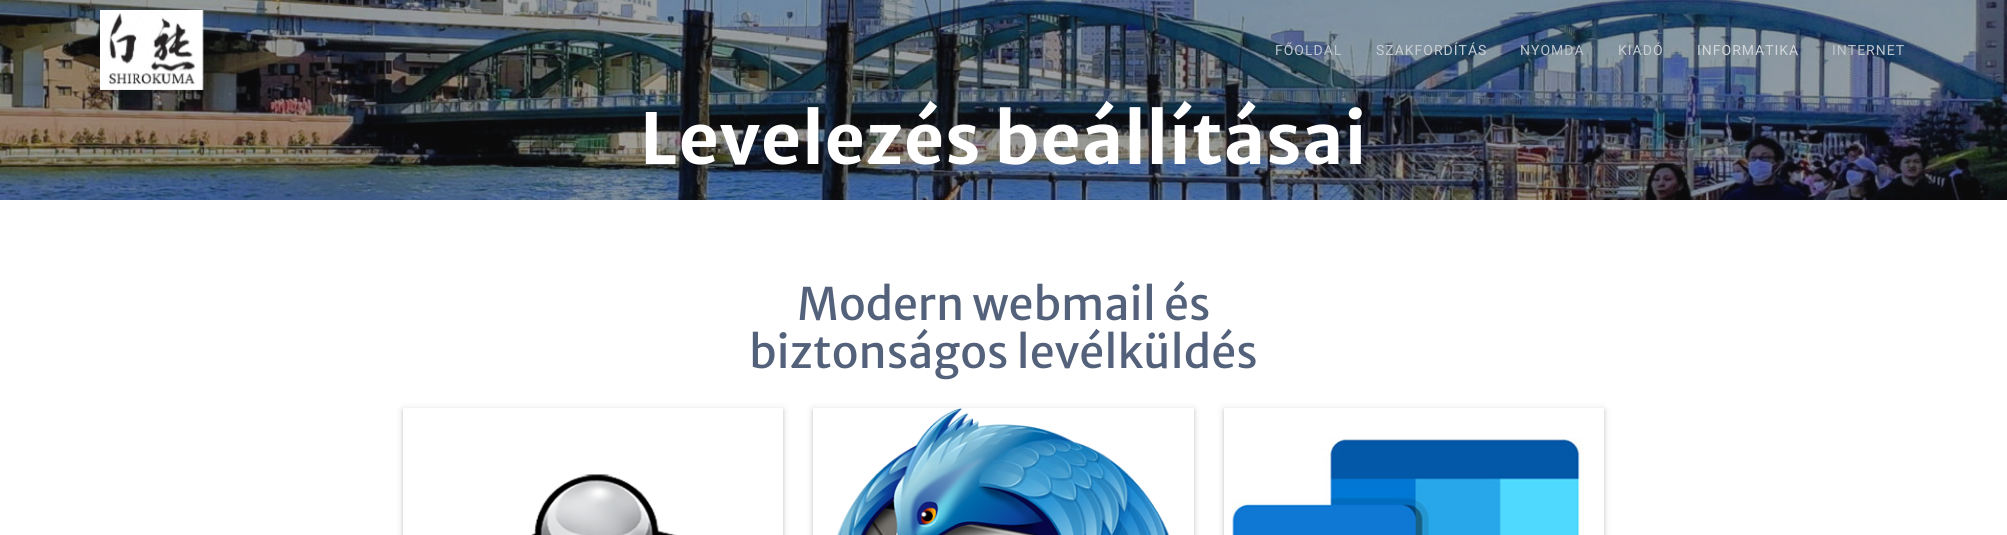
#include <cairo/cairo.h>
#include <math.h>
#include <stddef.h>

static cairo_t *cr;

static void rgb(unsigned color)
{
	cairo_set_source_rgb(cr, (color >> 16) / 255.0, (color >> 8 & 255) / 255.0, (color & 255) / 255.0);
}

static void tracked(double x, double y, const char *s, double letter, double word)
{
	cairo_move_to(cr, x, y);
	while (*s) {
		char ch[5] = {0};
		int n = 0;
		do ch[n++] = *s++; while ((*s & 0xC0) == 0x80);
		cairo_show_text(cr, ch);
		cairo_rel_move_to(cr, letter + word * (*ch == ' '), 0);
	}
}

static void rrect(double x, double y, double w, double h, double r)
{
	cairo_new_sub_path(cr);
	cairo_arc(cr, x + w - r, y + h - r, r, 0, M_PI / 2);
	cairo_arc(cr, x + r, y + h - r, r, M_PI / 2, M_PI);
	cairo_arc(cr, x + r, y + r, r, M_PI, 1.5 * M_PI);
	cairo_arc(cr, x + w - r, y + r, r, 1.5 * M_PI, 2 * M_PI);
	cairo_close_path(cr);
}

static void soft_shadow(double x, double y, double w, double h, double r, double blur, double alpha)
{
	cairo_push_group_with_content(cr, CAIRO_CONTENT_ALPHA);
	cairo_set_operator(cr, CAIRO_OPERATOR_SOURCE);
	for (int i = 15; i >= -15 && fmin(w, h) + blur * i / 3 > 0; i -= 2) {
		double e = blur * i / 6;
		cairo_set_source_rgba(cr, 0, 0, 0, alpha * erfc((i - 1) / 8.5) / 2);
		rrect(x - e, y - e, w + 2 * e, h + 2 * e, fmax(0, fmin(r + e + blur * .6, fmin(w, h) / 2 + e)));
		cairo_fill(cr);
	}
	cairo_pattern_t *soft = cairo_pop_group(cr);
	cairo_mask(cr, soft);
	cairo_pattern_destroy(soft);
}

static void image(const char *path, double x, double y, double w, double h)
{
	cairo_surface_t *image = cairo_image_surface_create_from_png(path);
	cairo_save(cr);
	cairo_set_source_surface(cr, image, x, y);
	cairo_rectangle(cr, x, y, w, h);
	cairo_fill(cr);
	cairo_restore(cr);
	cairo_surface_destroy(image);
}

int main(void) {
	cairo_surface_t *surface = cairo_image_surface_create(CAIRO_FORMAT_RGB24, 2007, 535);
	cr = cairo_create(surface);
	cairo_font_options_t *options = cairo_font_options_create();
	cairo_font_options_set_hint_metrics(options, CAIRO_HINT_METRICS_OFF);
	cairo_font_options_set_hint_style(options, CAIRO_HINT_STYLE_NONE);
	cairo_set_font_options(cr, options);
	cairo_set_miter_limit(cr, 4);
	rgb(0xffffff);
	cairo_paint(cr);
	image("img/2.png", 0, 0, 2007, 200);
	image("img/1.png", 100, 10, 104, 80);
	cairo_save(cr);
	cairo_set_fill_rule(cr, CAIRO_FILL_RULE_EVEN_ODD);
	cairo_new_path(cr);
	cairo_move_to(cr, 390, 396);
	cairo_line_to(cr, 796, 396);
	cairo_line_to(cr, 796, 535);
	cairo_line_to(cr, 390, 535);
	cairo_close_path(cr);
	cairo_move_to(cr, 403, 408);
	cairo_line_to(cr, 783, 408);
	cairo_line_to(cr, 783, 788);
	cairo_line_to(cr, 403, 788);
	cairo_close_path(cr);
	cairo_clip(cr);
	rgb(0x000000);
	soft_shadow(403, 409, 380, 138, 0, 4, 0.12);
	cairo_restore(cr);
	cairo_save(cr);
	cairo_set_fill_rule(cr, CAIRO_FILL_RULE_EVEN_ODD);
	cairo_new_path(cr);
	cairo_move_to(cr, 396, 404);
	cairo_line_to(cr, 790, 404);
	cairo_line_to(cr, 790, 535);
	cairo_line_to(cr, 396, 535);
	cairo_close_path(cr);
	cairo_move_to(cr, 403, 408);
	cairo_line_to(cr, 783, 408);
	cairo_line_to(cr, 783, 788);
	cairo_line_to(cr, 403, 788);
	cairo_close_path(cr);
	cairo_clip(cr);
	rgb(0x000000);
	soft_shadow(403, 411, 380, 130, 0, 2, 0.14);
	cairo_restore(cr);
	image("img/3.png", 530, 474, 147, 61);
	cairo_save(cr);
	cairo_set_fill_rule(cr, CAIRO_FILL_RULE_EVEN_ODD);
	cairo_new_path(cr);
	cairo_move_to(cr, 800, 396);
	cairo_line_to(cr, 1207, 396);
	cairo_line_to(cr, 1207, 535);
	cairo_line_to(cr, 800, 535);
	cairo_close_path(cr);
	cairo_move_to(cr, 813, 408);
	cairo_line_to(cr, 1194, 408);
	cairo_line_to(cr, 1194, 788);
	cairo_line_to(cr, 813, 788);
	cairo_close_path(cr);
	cairo_clip(cr);
	rgb(0x000000);
	soft_shadow(813, 409, 381, 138, 0, 4, 0.12);
	cairo_restore(cr);
	cairo_save(cr);
	cairo_set_fill_rule(cr, CAIRO_FILL_RULE_EVEN_ODD);
	cairo_new_path(cr);
	cairo_move_to(cr, 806, 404);
	cairo_line_to(cr, 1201, 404);
	cairo_line_to(cr, 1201, 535);
	cairo_line_to(cr, 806, 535);
	cairo_close_path(cr);
	cairo_move_to(cr, 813, 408);
	cairo_line_to(cr, 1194, 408);
	cairo_line_to(cr, 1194, 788);
	cairo_line_to(cr, 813, 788);
	cairo_close_path(cr);
	cairo_clip(cr);
	rgb(0x000000);
	soft_shadow(813, 411, 381, 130, 0, 2, 0.14);
	cairo_restore(cr);
	image("img/4.png", 837, 408, 333, 127);
	cairo_save(cr);
	cairo_set_fill_rule(cr, CAIRO_FILL_RULE_EVEN_ODD);
	cairo_new_path(cr);
	cairo_move_to(cr, 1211, 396);
	cairo_line_to(cr, 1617, 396);
	cairo_line_to(cr, 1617, 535);
	cairo_line_to(cr, 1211, 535);
	cairo_close_path(cr);
	cairo_move_to(cr, 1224, 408);
	cairo_line_to(cr, 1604, 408);
	cairo_line_to(cr, 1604, 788);
	cairo_line_to(cr, 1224, 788);
	cairo_close_path(cr);
	cairo_clip(cr);
	rgb(0x000000);
	soft_shadow(1224, 409, 380, 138, 0, 4, 0.12);
	cairo_restore(cr);
	cairo_save(cr);
	cairo_set_fill_rule(cr, CAIRO_FILL_RULE_EVEN_ODD);
	cairo_new_path(cr);
	cairo_move_to(cr, 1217, 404);
	cairo_line_to(cr, 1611, 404);
	cairo_line_to(cr, 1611, 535);
	cairo_line_to(cr, 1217, 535);
	cairo_close_path(cr);
	cairo_move_to(cr, 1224, 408);
	cairo_line_to(cr, 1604, 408);
	cairo_line_to(cr, 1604, 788);
	cairo_line_to(cr, 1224, 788);
	cairo_close_path(cr);
	cairo_clip(cr);
	rgb(0x000000);
	soft_shadow(1224, 411, 380, 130, 0, 2, 0.14);
	cairo_restore(cr);
	image("img/5.png", 1231, 438, 354, 97);
	cairo_select_font_face(cr, "Roboto", CAIRO_FONT_SLANT_NORMAL, CAIRO_FONT_WEIGHT_NORMAL);
	cairo_set_font_size(cr, 14);
	rgb(0xbec6cf);
	tracked(1275, 55, "FŐOLDAL", 1, 0);
	rgb(0xc6cdd4);
	tracked(1376, 55, "SZAKFORDÍTÁS", 1, 0);
	rgb(0xbec6cf);
	tracked(1520, 55, "NYOMDA", 1, 0);
	rgb(0xc6cdd4);
	tracked(1618, 55, "KIADÓ", 1, 0);
	rgb(0xd1d6da);
	tracked(1697, 55, "INFORMATIKA", 1, 0);
	rgb(0xbec6cf);
	tracked(1832, 55, "INTERNET", 1, 0);
	cairo_select_font_face(cr, "Merriweather Sans", CAIRO_FONT_SLANT_NORMAL, CAIRO_FONT_WEIGHT_BOLD);
	cairo_set_font_size(cr, 70);
	rgb(0xffffff);
	tracked(640, 164, "Levelezés beállításai", 0.9, 0);
	cairo_select_font_face(cr, "Merriweather Sans", CAIRO_FONT_SLANT_NORMAL, CAIRO_FONT_WEIGHT_NORMAL);
	cairo_set_font_size(cr, 44.75);
	rgb(0x54617a);
	cairo_move_to(cr, 797, 320);
	cairo_show_text(cr, "Modern webmail és");
	cairo_move_to(cr, 749, 368);
	cairo_show_text(cr, "biztonságos levélküldés");
	cairo_surface_write_to_png(surface, "page.png");
	cairo_font_options_destroy(options);
	cairo_destroy(cr);
	cairo_surface_destroy(surface);
	return 0;
}
